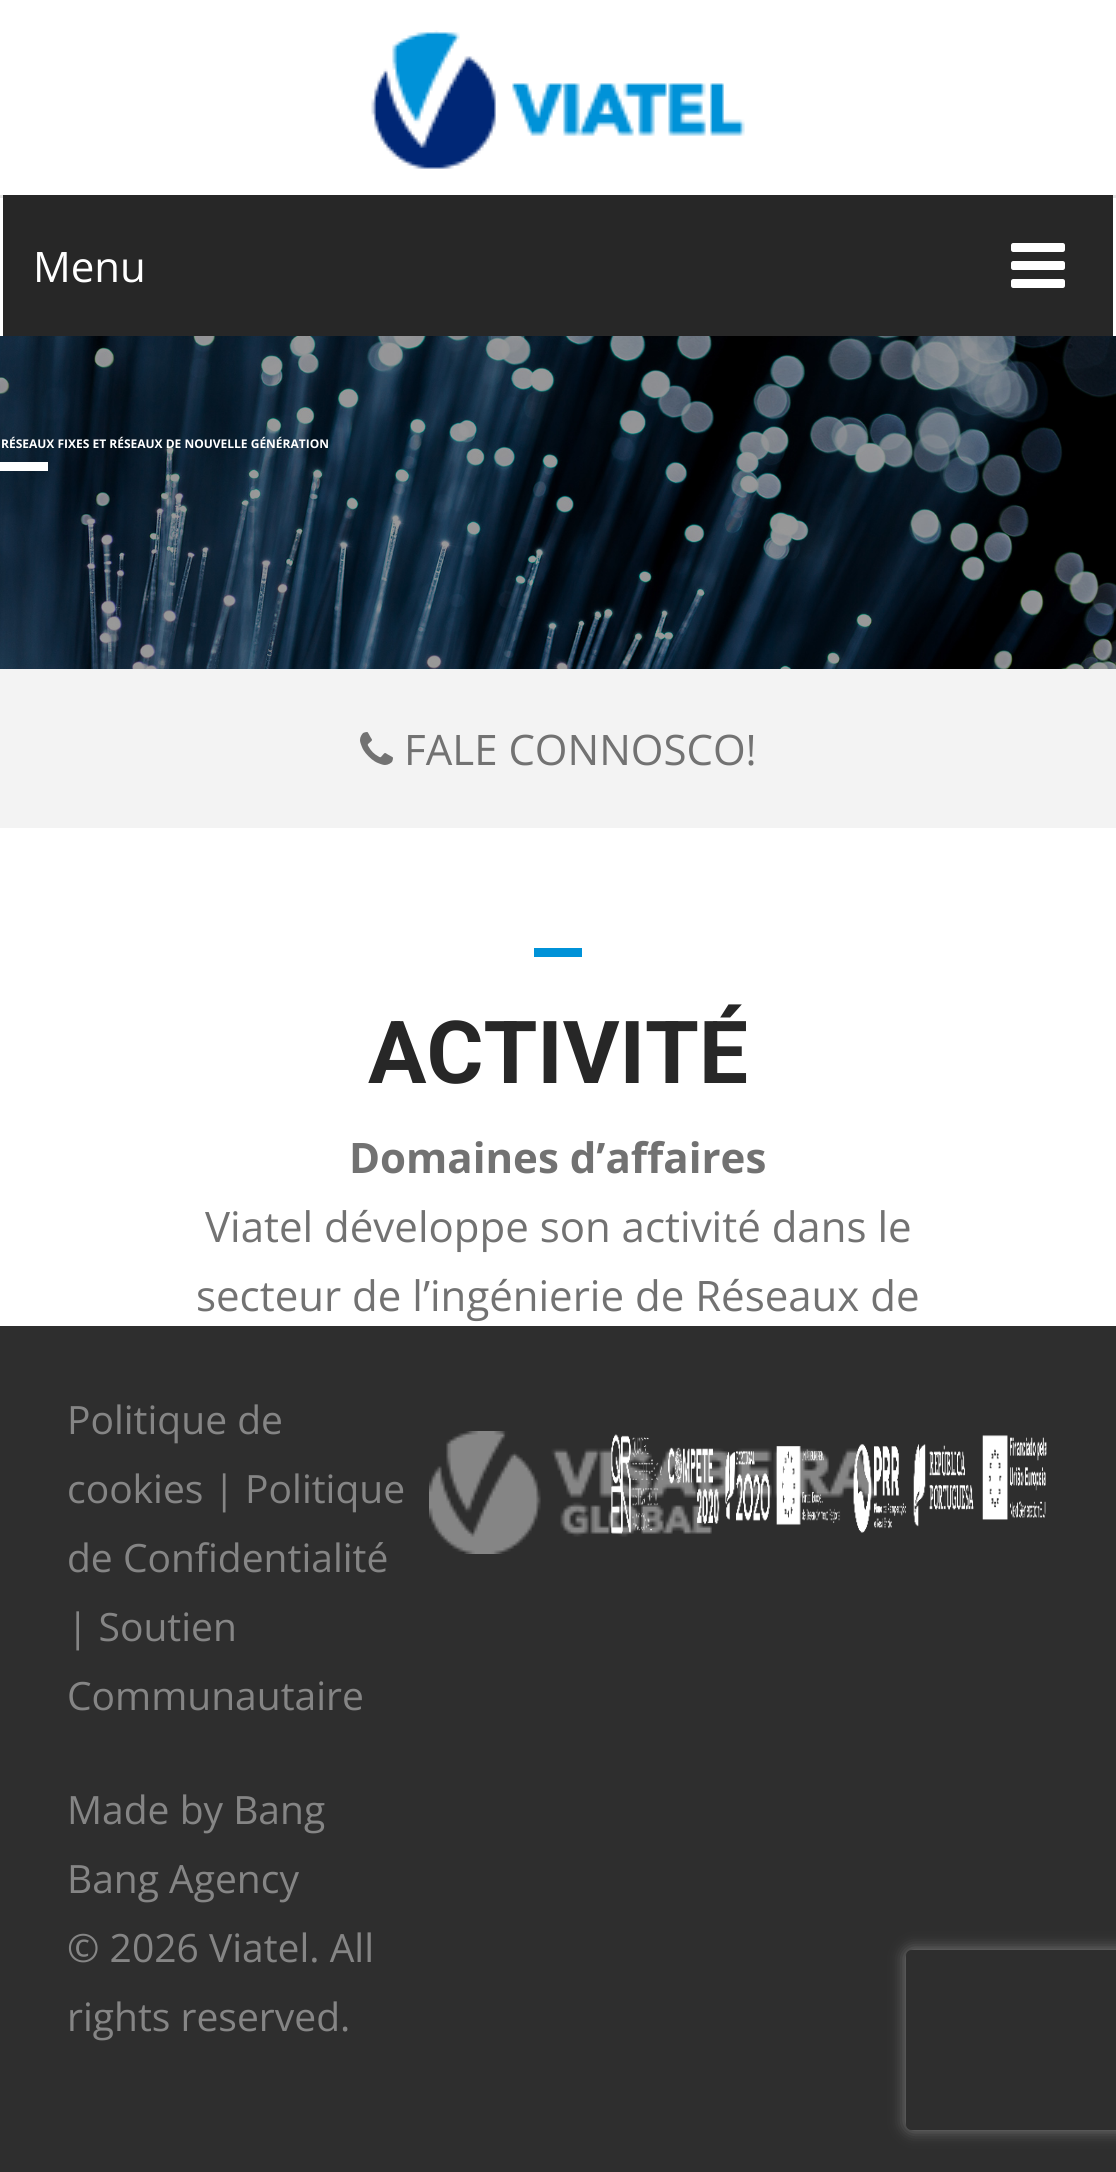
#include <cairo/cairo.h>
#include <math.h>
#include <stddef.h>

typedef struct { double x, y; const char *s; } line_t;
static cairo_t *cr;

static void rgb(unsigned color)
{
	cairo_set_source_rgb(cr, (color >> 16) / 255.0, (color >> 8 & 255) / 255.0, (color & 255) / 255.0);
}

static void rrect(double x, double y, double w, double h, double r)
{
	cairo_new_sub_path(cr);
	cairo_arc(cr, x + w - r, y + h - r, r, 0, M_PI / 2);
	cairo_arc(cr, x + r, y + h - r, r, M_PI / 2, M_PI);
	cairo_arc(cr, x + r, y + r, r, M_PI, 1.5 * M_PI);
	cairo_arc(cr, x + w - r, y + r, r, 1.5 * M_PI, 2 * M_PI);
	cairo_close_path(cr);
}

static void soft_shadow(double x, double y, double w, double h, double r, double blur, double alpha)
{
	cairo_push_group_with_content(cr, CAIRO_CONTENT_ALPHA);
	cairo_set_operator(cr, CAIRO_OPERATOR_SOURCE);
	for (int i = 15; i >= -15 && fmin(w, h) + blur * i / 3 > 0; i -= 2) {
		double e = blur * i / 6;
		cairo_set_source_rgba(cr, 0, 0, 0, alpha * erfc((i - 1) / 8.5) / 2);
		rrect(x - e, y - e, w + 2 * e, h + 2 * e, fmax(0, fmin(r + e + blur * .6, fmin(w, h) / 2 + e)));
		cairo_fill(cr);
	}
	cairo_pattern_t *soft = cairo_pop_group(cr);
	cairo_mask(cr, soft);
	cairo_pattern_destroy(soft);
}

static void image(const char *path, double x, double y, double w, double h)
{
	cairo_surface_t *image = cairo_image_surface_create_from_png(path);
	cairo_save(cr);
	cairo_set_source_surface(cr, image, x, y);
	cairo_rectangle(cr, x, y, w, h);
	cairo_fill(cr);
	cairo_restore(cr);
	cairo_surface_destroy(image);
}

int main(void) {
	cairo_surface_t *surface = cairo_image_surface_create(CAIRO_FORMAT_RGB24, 1116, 2172);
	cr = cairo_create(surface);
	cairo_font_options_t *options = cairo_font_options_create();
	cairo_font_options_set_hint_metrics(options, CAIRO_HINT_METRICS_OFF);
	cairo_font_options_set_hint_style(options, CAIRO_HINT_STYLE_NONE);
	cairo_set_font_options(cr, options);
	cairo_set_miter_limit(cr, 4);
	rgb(0xffffff);
	cairo_paint(cr);
	rgb(0xe4e4e4);
	cairo_rectangle(cr, 0, 195, 1116, 3);
	cairo_fill(cr);
	image("img/1.png", 371, 30, 374, 139);
	rgb(0x272727);
	cairo_rectangle(cr, 3, 195, 1110, 141);
	cairo_fill(cr);
	image("img/2.png", 1011, 243, 54, 45);
	image("img/3.png", 0, 336, 1116, 333);
	rgb(0xffffff);
	cairo_rectangle(cr, 0, 462, 48, 9);
	cairo_fill(cr);
	rgb(0xf3f3f3);
	cairo_rectangle(cr, 0, 669, 1116, 159);
	cairo_fill(cr);
	image("img/4.png", 360, 732, 33, 33);
	rgb(0x0092d8);
	cairo_rectangle(cr, 534, 948, 48, 9);
	cairo_fill(cr);
	rgb(0x2e2e2e);
	cairo_rectangle(cr, 0, 1326, 1116, 846);
	cairo_fill(cr);
	image("img/5.png", 429, 1431, 448, 123);
	image("img/6.png", 611, 1434, 436, 100);
	cairo_save(cr);
	cairo_set_fill_rule(cr, CAIRO_FILL_RULE_EVEN_ODD);
	cairo_new_path(cr);
	cairo_move_to(cr, 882, 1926);
	cairo_line_to(cr, 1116, 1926);
	cairo_line_to(cr, 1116, 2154);
	cairo_line_to(cr, 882, 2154);
	cairo_close_path(cr);
	cairo_move_to(cr, 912, 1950);
	cairo_line_to(cr, 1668, 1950);
	cairo_curve_to(cr, 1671.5, 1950, 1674, 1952.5, 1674, 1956);
	cairo_line_to(cr, 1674, 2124);
	cairo_curve_to(cr, 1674, 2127.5, 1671.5, 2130, 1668, 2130);
	cairo_line_to(cr, 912, 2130);
	cairo_curve_to(cr, 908.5, 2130, 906, 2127.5, 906, 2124);
	cairo_line_to(cr, 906, 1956);
	cairo_curve_to(cr, 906, 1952.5, 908.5, 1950, 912, 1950);
	cairo_close_path(cr);
	cairo_clip(cr);
	rgb(0x808080);
	soft_shadow(906, 1950, 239, 180, 6, 7.5, 1);
	cairo_restore(cr);
	cairo_select_font_face(cr, "Open Sans", CAIRO_FONT_SLANT_NORMAL, CAIRO_FONT_WEIGHT_NORMAL);
	cairo_set_font_size(cr, 42);
	rgb(0xffffff);
	cairo_move_to(cr, 33, 282);
	cairo_show_text(cr, "Menu");
	cairo_select_font_face(cr, "Open Sans", CAIRO_FONT_SLANT_NORMAL, CAIRO_FONT_WEIGHT_BOLD);
	cairo_set_font_size(cr, 12);
	cairo_move_to(cr, 1, 448);
	cairo_show_text(cr, "RÉSEAUX FIXES ET RÉSEAUX DE NOUVELLE GÉNÉRATION");
	cairo_select_font_face(cr, "Open Sans", CAIRO_FONT_SLANT_NORMAL, CAIRO_FONT_WEIGHT_NORMAL);
	cairo_set_font_size(cr, 42);
	rgb(0x727272);
	cairo_move_to(cr, 404, 765);
	cairo_show_text(cr, "FALE CONNOSCO!");
	cairo_select_font_face(cr, "Roboto", CAIRO_FONT_SLANT_NORMAL, CAIRO_FONT_WEIGHT_BOLD);
	cairo_set_font_size(cr, 87);
	rgb(0x272727);
	cairo_move_to(cr, 368, 1083);
	cairo_show_text(cr, "ACTIVITÉ");
	cairo_select_font_face(cr, "Open Sans", CAIRO_FONT_SLANT_NORMAL, CAIRO_FONT_WEIGHT_BOLD);
	cairo_set_font_size(cr, 42);
	rgb(0x727272);
	cairo_move_to(cr, 349, 1173);
	cairo_show_text(cr, "Domaines d’affaires");
	cairo_select_font_face(cr, "Open Sans", CAIRO_FONT_SLANT_NORMAL, CAIRO_FONT_WEIGHT_NORMAL);
	cairo_move_to(cr, 205, 1242);
	cairo_show_text(cr, "Viatel développe son activité dans le");
	cairo_move_to(cr, 196, 1311);
	cairo_show_text(cr, "secteur de l’ingénierie de Réseaux de");
	cairo_set_font_size(cr, 39);
	rgb(0x858585);
	{
		static const line_t items[] = {
			{67, 1434, "Politique de"},
			{67, 1503, "cookies | Politique"},
			{67, 1572, "de Confidentialité"},
			{67, 1641, "| Soutien"},
			{67, 1710, "Communautaire"},
			{67, 1824, "Made by Bang"},
			{67, 1893, "Bang Agency"},
			{67, 1962, "© 2026 Viatel. All"},
			{67, 2031, "rights reserved."},
		};
		for (size_t i = 0; i < sizeof items / sizeof *items; i++) {
			cairo_move_to(cr, items[i].x, items[i].y);
			cairo_show_text(cr, items[i].s);
		}
	}
	cairo_surface_write_to_png(surface, "page.png");
	cairo_font_options_destroy(options);
	cairo_destroy(cr);
	cairo_surface_destroy(surface);
	return 0;
}
